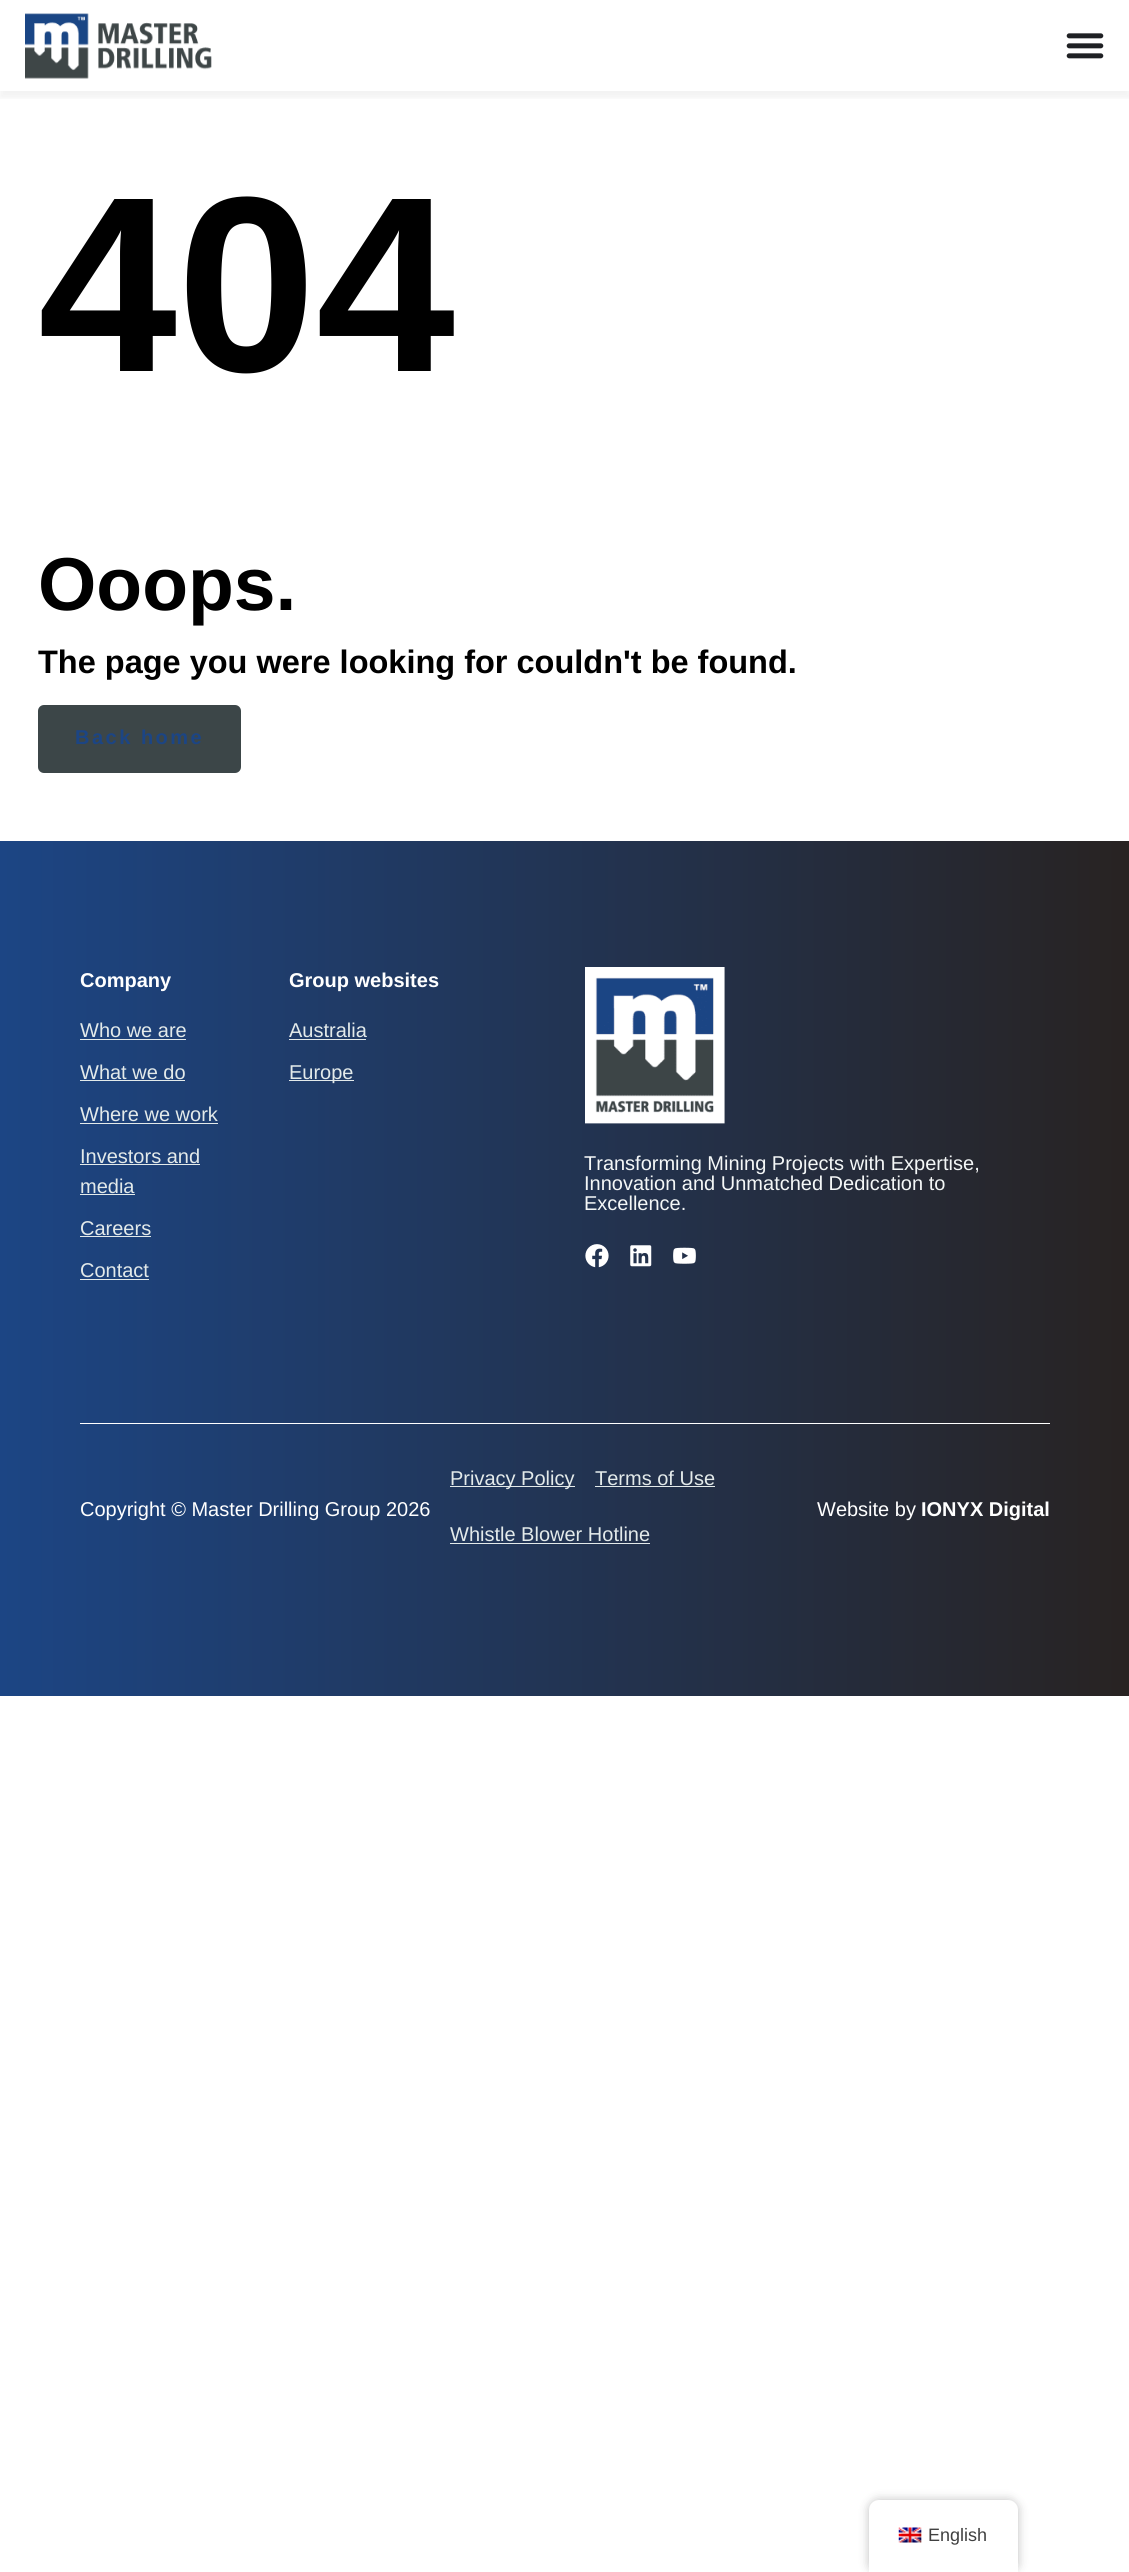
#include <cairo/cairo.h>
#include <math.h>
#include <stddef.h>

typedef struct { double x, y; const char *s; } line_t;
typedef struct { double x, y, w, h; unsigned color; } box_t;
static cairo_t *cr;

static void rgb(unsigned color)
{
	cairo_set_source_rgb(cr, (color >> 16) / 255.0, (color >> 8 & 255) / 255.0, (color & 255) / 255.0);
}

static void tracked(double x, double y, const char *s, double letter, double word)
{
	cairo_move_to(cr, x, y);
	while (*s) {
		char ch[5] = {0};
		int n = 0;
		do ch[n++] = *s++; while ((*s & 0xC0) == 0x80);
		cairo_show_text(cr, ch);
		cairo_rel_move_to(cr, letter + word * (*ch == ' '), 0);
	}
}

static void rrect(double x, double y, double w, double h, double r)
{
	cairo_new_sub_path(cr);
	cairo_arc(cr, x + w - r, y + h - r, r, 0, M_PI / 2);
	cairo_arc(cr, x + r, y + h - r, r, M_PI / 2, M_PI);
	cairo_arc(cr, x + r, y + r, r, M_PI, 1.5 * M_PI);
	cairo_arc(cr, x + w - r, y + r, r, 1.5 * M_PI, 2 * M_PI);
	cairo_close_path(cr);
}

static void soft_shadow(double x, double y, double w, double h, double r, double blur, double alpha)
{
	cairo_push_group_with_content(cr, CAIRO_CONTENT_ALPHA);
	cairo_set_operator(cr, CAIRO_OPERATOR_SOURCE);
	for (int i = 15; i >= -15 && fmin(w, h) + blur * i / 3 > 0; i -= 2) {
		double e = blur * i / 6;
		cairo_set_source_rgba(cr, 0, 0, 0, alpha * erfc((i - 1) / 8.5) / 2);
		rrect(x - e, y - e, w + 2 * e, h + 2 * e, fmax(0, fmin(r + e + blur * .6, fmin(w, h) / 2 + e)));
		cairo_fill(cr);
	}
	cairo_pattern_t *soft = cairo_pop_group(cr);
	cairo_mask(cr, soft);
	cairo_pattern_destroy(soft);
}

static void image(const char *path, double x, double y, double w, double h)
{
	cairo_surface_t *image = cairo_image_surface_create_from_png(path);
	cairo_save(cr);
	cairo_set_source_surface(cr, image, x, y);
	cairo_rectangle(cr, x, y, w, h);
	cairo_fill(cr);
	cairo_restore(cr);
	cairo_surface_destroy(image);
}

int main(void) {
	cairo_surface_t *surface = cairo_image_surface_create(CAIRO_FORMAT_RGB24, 1129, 2572);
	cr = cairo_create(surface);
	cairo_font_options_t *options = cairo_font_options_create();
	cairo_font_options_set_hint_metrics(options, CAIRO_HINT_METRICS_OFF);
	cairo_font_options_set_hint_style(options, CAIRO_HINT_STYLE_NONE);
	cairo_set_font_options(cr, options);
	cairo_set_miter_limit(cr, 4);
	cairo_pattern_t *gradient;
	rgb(0xffffff);
	cairo_paint(cr);
	cairo_save(cr);
	cairo_rectangle(cr, 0, 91, 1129, 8);
	cairo_clip(cr);
	rgb(0x000000);
	soft_shadow(0, 6, 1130, 92, 0, 3, 0.05);
	cairo_restore(cr);
	image("img/1.png", 25, 13, 187, 66);
	image("img/2.png", 1066, 33, 38, 26);
	rgb(0x3c4648);
	rrect(38, 705, 203, 68, 6);
	cairo_fill(cr);
	gradient = cairo_pattern_create_linear(0, 1269, 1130, 1269);
	cairo_pattern_add_color_stop_rgba(gradient, 0, 0.11, 0.271, 0.518, 1);
	cairo_pattern_add_color_stop_rgba(gradient, 1, 0.157, 0.137, 0.133, 1);
	cairo_set_source(cr, gradient);
	cairo_pattern_destroy(gradient);
	cairo_rectangle(cr, 0, 841, 1129, 855);
	cairo_fill(cr);
	{
		static const box_t items[] = {
			{80, 1039, 106, 1, 0xe3eaea},
			{80, 1080, 105, 1, 0xe3eaea},
			{80, 1123, 138, 1, 0xe3eaea},
			{80, 1164, 120, 1, 0xe3eaea},
			{80, 1194, 55, 1, 0xe3eaea},
			{80, 1236, 71, 1, 0xe3eaea},
			{80, 1279, 69, 1, 0xe3eaea},
			{289, 1039, 77, 1, 0xe3eaea},
			{289, 1080, 65, 1, 0xe3eaea},
		};
		for (size_t i = 0; i < sizeof items / sizeof *items; i++) {
			rgb(items[i].color);
			cairo_rectangle(cr, items[i].x, items[i].y, items[i].w, items[i].h);
			cairo_fill(cr);
		}
	}
	image("img/3.png", 585, 967, 140, 157);
	image("img/4.png", 585, 1244, 24, 24);
	image("img/5.png", 630, 1245, 22, 22);
	image("img/6.png", 673, 1247, 23, 17);
	{
		static const box_t items[] = {
			{80, 1423, 970, 1, 0xffffff},
			{450, 1486, 125, 1, 0xe3eaea},
			{595, 1486, 120, 1, 0xe3eaea},
			{450, 1543, 200, 1, 0xe3eaea},
		};
		for (size_t i = 0; i < sizeof items / sizeof *items; i++) {
			rgb(items[i].color);
			cairo_rectangle(cr, items[i].x, items[i].y, items[i].w, items[i].h);
			cairo_fill(cr);
		}
	}
	rgb(0x000000);
	soft_shadow(869, 2500, 149, 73, 10, 5, 0.25);
	rgb(0xffffff);
	cairo_new_path(cr);
	cairo_move_to(cr, 879, 2500);
	cairo_line_to(cr, 1008, 2500);
	cairo_curve_to(cr, 1013.5, 2500, 1018, 2504.5, 1018, 2510);
	cairo_line_to(cr, 1018, 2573);
	cairo_line_to(cr, 869, 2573);
	cairo_line_to(cr, 869, 2510);
	cairo_curve_to(cr, 869, 2504.5, 873.5, 2500, 879, 2500);
	cairo_close_path(cr);
	cairo_fill(cr);
	image("img/7.png", 898, 2527, 24, 16);
	cairo_select_font_face(cr, "Liberation Sans", CAIRO_FONT_SLANT_NORMAL, CAIRO_FONT_WEIGHT_BOLD);
	cairo_set_font_size(cr, 250);
	rgb(0x000000);
	cairo_move_to(cr, 38, 371);
	cairo_show_text(cr, "404");
	cairo_set_font_size(cr, 75);
	cairo_move_to(cr, 38, 610);
	cairo_show_text(cr, "Ooops.");
	cairo_set_font_size(cr, 32.5);
	cairo_move_to(cr, 38, 673);
	cairo_show_text(cr, "The page you were looking for couldn't be found.");
	cairo_set_font_size(cr, 20);
	rgb(0x1c4584);
	tracked(75, 744, "Back home", 2.5, 0);
	rgb(0xffffff);
	cairo_move_to(cr, 80, 987);
	cairo_show_text(cr, "Company");
	cairo_select_font_face(cr, "Liberation Sans", CAIRO_FONT_SLANT_NORMAL, CAIRO_FONT_WEIGHT_NORMAL);
	rgb(0xe3eaea);
	{
		static const line_t items[] = {
			{80, 1037, "Who we are"},
			{80, 1079, "What we do"},
			{80, 1121, "Where we work"},
			{80, 1163, "Investors and"},
			{80, 1193, "media"},
			{80, 1235, "Careers"},
			{80, 1277, "Contact"},
		};
		for (size_t i = 0; i < sizeof items / sizeof *items; i++) {
			cairo_move_to(cr, items[i].x, items[i].y);
			cairo_show_text(cr, items[i].s);
		}
	}
	cairo_select_font_face(cr, "Liberation Sans", CAIRO_FONT_SLANT_NORMAL, CAIRO_FONT_WEIGHT_BOLD);
	rgb(0xffffff);
	cairo_move_to(cr, 289, 987);
	cairo_show_text(cr, "Group websites");
	cairo_select_font_face(cr, "Liberation Sans", CAIRO_FONT_SLANT_NORMAL, CAIRO_FONT_WEIGHT_NORMAL);
	rgb(0xe3eaea);
	cairo_move_to(cr, 289, 1037);
	cairo_show_text(cr, "Australia");
	cairo_move_to(cr, 289, 1079);
	cairo_show_text(cr, "Europe");
	rgb(0xf4f7f7);
	{
		static const line_t items[] = {
			{584, 1170, "Transforming Mining Projects with Expertise,"},
			{584, 1190, "Innovation and Unmatched Dedication to"},
			{584, 1210, "Excellence."},
		};
		for (size_t i = 0; i < sizeof items / sizeof *items; i++) {
			cairo_move_to(cr, items[i].x, items[i].y);
			cairo_show_text(cr, items[i].s);
		}
	}
	rgb(0xffffff);
	cairo_move_to(cr, 80, 1516);
	cairo_show_text(cr, "Copyright © Master Drilling Group 2026");
	rgb(0xe3eaea);
	{
		static const line_t items[] = {
			{450, 1485, "Privacy Policy"},
			{595, 1485, "Terms of Use"},
			{450, 1541, "Whistle Blower Hotline"},
		};
		for (size_t i = 0; i < sizeof items / sizeof *items; i++) {
			cairo_move_to(cr, items[i].x, items[i].y);
			cairo_show_text(cr, items[i].s);
		}
	}
	rgb(0xffffff);
	cairo_move_to(cr, 817, 1516);
	cairo_show_text(cr, "Website by");
	cairo_select_font_face(cr, "Liberation Sans", CAIRO_FONT_SLANT_NORMAL, CAIRO_FONT_WEIGHT_BOLD);
	cairo_move_to(cr, 921, 1516);
	cairo_show_text(cr, "IONYX Digital");
	cairo_select_font_face(cr, "Liberation Sans", CAIRO_FONT_SLANT_NORMAL, CAIRO_FONT_WEIGHT_NORMAL);
	cairo_set_font_size(cr, 18);
	rgb(0x404040);
	cairo_move_to(cr, 928, 2541);
	cairo_show_text(cr, "English");
	cairo_surface_write_to_png(surface, "page.png");
	cairo_font_options_destroy(options);
	cairo_destroy(cr);
	cairo_surface_destroy(surface);
	return 0;
}
